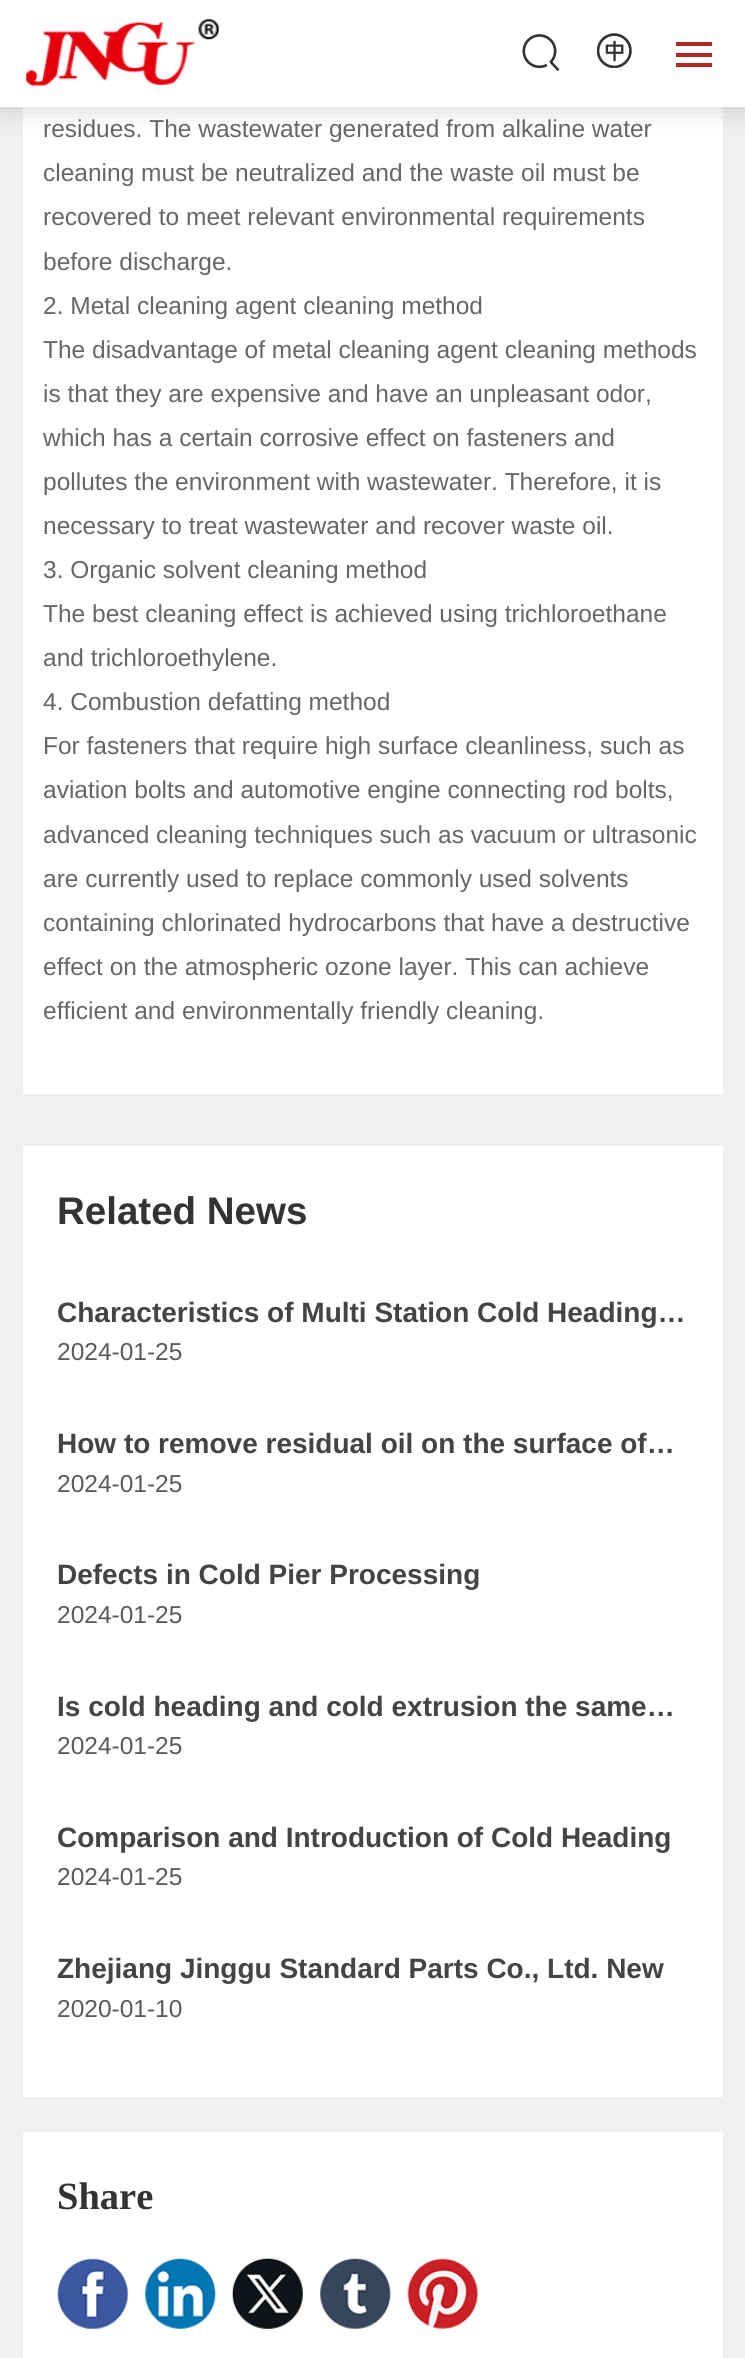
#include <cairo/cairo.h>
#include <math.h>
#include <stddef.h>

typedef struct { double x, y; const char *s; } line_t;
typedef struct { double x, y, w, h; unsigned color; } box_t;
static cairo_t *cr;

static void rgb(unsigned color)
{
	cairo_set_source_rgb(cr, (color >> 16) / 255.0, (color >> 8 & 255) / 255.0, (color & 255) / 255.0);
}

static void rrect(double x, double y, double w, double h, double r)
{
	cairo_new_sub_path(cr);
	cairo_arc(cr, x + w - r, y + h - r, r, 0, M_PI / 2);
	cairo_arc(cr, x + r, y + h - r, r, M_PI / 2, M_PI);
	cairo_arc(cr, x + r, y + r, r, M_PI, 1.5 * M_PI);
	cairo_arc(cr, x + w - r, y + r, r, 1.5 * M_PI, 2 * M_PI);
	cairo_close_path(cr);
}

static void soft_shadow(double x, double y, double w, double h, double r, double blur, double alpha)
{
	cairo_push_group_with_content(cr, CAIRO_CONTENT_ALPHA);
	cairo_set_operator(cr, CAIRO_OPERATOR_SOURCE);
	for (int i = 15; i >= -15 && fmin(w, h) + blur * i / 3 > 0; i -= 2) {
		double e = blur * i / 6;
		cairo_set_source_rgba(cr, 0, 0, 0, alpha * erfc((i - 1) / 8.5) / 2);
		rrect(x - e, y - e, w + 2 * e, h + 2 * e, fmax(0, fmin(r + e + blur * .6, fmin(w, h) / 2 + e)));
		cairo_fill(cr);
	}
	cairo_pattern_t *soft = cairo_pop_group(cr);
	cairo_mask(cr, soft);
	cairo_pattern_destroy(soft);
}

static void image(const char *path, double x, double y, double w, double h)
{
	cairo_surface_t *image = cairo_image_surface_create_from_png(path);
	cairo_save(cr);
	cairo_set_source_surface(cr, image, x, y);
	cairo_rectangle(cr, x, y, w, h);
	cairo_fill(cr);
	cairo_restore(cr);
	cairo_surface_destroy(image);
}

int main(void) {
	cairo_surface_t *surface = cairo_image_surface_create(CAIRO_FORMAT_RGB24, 745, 2358);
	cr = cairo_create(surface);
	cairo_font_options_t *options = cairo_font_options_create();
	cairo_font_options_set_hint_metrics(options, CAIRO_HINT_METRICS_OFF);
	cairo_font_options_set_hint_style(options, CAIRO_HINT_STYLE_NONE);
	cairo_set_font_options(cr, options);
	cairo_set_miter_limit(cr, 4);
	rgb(0xf0f0f0);
	cairo_paint(cr);
	rgb(0xffffff);
	cairo_rectangle(cr, 23, 107, 700, 987);
	cairo_fill(cr);
	rgb(0x000000);
	soft_shadow(0, 0, 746, 107, 0, 13, 0.2);
	rgb(0xffffff);
	cairo_rectangle(cr, 0, 0, 745, 107);
	cairo_fill(cr);
	image("img/1.png", 26, 19, 193, 67);
	image("img/2.png", 522, 34, 38, 37);
	image("img/3.png", 597, 33, 35, 35);
	{
		static const box_t items[] = {
			{676, 42, 36, 4, 0xb02923},
			{676, 53, 36, 4, 0xb02923},
			{676, 63, 36, 4, 0xb02923},
			{23, 1146, 700, 951, 0xffffff},
			{23, 2132, 700, 226, 0xffffff},
		};
		for (size_t i = 0; i < sizeof items / sizeof *items; i++) {
			rgb(items[i].color);
			cairo_rectangle(cr, items[i].x, items[i].y, items[i].w, items[i].h);
			cairo_fill(cr);
		}
	}
	image("img/4.png", 57, 2258, 71, 71);
	image("img/5.png", 145, 2258, 71, 71);
	image("img/6.png", 232, 2258, 71, 71);
	image("img/7.png", 320, 2258, 71, 71);
	image("img/8.png", 407, 2258, 71, 71);
	cairo_select_font_face(cr, "Liberation Sans", CAIRO_FONT_SLANT_NORMAL, CAIRO_FONT_WEIGHT_NORMAL);
	cairo_set_font_size(cr, 24.5);
	rgb(0x666666);
	{
		static const line_t items[] = {
			{43, 137, "residues. The wastewater generated from alkaline water"},
			{43, 181, "cleaning must be neutralized and the waste oil must be"},
			{43, 225, "recovered to meet relevant environmental requirements"},
			{43, 270, "before discharge."},
			{43, 314, "2. Metal cleaning agent cleaning method"},
			{43, 358, "The disadvantage of metal cleaning agent cleaning methods"},
			{43, 402, "is that they are expensive and have an unpleasant odor,"},
			{43, 446, "which has a certain corrosive effect on fasteners and"},
			{43, 490, "pollutes the environment with wastewater. Therefore, it is"},
			{43, 534, "necessary to treat wastewater and recover waste oil."},
			{43, 578, "3. Organic solvent cleaning method"},
			{43, 622, "The best cleaning effect is achieved using trichloroethane"},
			{43, 666, "and trichloroethylene."},
			{43, 710, "4. Combustion defatting method"},
			{43, 754, "For fasteners that require high surface cleanliness, such as"},
			{43, 798, "aviation bolts and automotive engine connecting rod bolts,"},
			{43, 843, "advanced cleaning techniques such as vacuum or ultrasonic"},
			{43, 887, "are currently used to replace commonly used solvents"},
			{43, 931, "containing chlorinated hydrocarbons that have a destructive"},
			{43, 975, "effect on the atmospheric ozone layer. This can achieve"},
			{43, 1019, "efficient and environmentally friendly cleaning."},
		};
		for (size_t i = 0; i < sizeof items / sizeof *items; i++) {
			cairo_move_to(cr, items[i].x, items[i].y);
			cairo_show_text(cr, items[i].s);
		}
	}
	cairo_select_font_face(cr, "Liberation Sans", CAIRO_FONT_SLANT_NORMAL, CAIRO_FONT_WEIGHT_BOLD);
	cairo_set_font_size(cr, 38.5);
	rgb(0x333333);
	cairo_move_to(cr, 57, 1224);
	cairo_show_text(cr, "Related News");
	cairo_set_font_size(cr, 28);
	rgb(0x444444);
	cairo_move_to(cr, 57, 1322);
	cairo_show_text(cr, "Characteristics of Multi Station Cold Heading…");
	cairo_select_font_face(cr, "Liberation Sans", CAIRO_FONT_SLANT_NORMAL, CAIRO_FONT_WEIGHT_NORMAL);
	cairo_set_font_size(cr, 24.5);
	rgb(0x5a5a5a);
	cairo_move_to(cr, 57, 1360);
	cairo_show_text(cr, "2024-01-25");
	cairo_select_font_face(cr, "Liberation Sans", CAIRO_FONT_SLANT_NORMAL, CAIRO_FONT_WEIGHT_BOLD);
	cairo_set_font_size(cr, 28);
	rgb(0x444444);
	cairo_move_to(cr, 57, 1453);
	cairo_show_text(cr, "How to remove residual oil on the surface of…");
	cairo_select_font_face(cr, "Liberation Sans", CAIRO_FONT_SLANT_NORMAL, CAIRO_FONT_WEIGHT_NORMAL);
	cairo_set_font_size(cr, 24.5);
	rgb(0x5a5a5a);
	cairo_move_to(cr, 57, 1492);
	cairo_show_text(cr, "2024-01-25");
	cairo_select_font_face(cr, "Liberation Sans", CAIRO_FONT_SLANT_NORMAL, CAIRO_FONT_WEIGHT_BOLD);
	cairo_set_font_size(cr, 28);
	rgb(0x444444);
	cairo_move_to(cr, 57, 1584);
	cairo_show_text(cr, "Defects in Cold Pier Processing");
	cairo_select_font_face(cr, "Liberation Sans", CAIRO_FONT_SLANT_NORMAL, CAIRO_FONT_WEIGHT_NORMAL);
	cairo_set_font_size(cr, 24.5);
	rgb(0x5a5a5a);
	cairo_move_to(cr, 57, 1623);
	cairo_show_text(cr, "2024-01-25");
	cairo_select_font_face(cr, "Liberation Sans", CAIRO_FONT_SLANT_NORMAL, CAIRO_FONT_WEIGHT_BOLD);
	cairo_set_font_size(cr, 28);
	rgb(0x444444);
	cairo_move_to(cr, 57, 1716);
	cairo_show_text(cr, "Is cold heading and cold extrusion the same…");
	cairo_select_font_face(cr, "Liberation Sans", CAIRO_FONT_SLANT_NORMAL, CAIRO_FONT_WEIGHT_NORMAL);
	cairo_set_font_size(cr, 24.5);
	rgb(0x5a5a5a);
	cairo_move_to(cr, 57, 1754);
	cairo_show_text(cr, "2024-01-25");
	cairo_select_font_face(cr, "Liberation Sans", CAIRO_FONT_SLANT_NORMAL, CAIRO_FONT_WEIGHT_BOLD);
	cairo_set_font_size(cr, 28);
	rgb(0x444444);
	cairo_move_to(cr, 57, 1847);
	cairo_show_text(cr, "Comparison and Introduction of Cold Heading");
	cairo_select_font_face(cr, "Liberation Sans", CAIRO_FONT_SLANT_NORMAL, CAIRO_FONT_WEIGHT_NORMAL);
	cairo_set_font_size(cr, 24.5);
	rgb(0x5a5a5a);
	cairo_move_to(cr, 57, 1885);
	cairo_show_text(cr, "2024-01-25");
	cairo_select_font_face(cr, "Liberation Sans", CAIRO_FONT_SLANT_NORMAL, CAIRO_FONT_WEIGHT_BOLD);
	cairo_set_font_size(cr, 28);
	rgb(0x444444);
	cairo_move_to(cr, 57, 1978);
	cairo_show_text(cr, "Zhejiang Jinggu Standard Parts Co., Ltd. New");
	cairo_select_font_face(cr, "Liberation Sans", CAIRO_FONT_SLANT_NORMAL, CAIRO_FONT_WEIGHT_NORMAL);
	cairo_set_font_size(cr, 24.5);
	rgb(0x5a5a5a);
	cairo_move_to(cr, 57, 2017);
	cairo_show_text(cr, "2020-01-10");
	cairo_select_font_face(cr, "Liberation Serif", CAIRO_FONT_SLANT_NORMAL, CAIRO_FONT_WEIGHT_BOLD);
	cairo_set_font_size(cr, 38.5);
	rgb(0x333333);
	cairo_move_to(cr, 57, 2209);
	cairo_show_text(cr, "Share");
	cairo_surface_write_to_png(surface, "page.png");
	cairo_font_options_destroy(options);
	cairo_destroy(cr);
	cairo_surface_destroy(surface);
	return 0;
}
